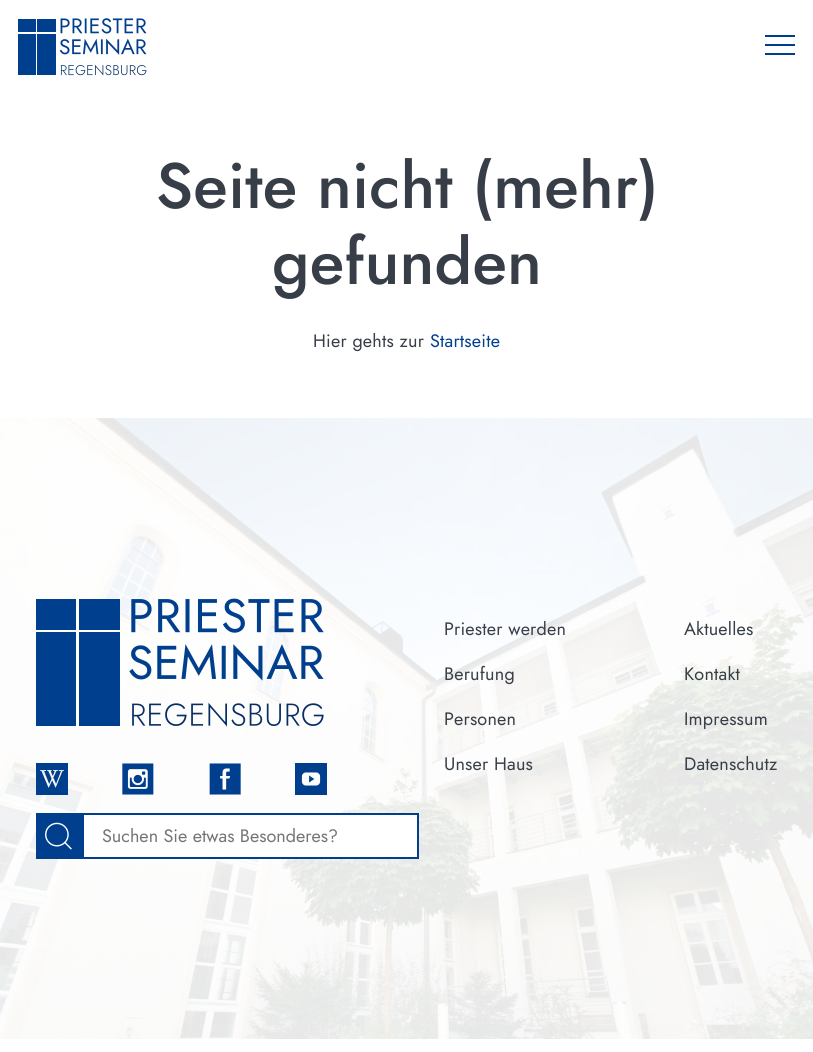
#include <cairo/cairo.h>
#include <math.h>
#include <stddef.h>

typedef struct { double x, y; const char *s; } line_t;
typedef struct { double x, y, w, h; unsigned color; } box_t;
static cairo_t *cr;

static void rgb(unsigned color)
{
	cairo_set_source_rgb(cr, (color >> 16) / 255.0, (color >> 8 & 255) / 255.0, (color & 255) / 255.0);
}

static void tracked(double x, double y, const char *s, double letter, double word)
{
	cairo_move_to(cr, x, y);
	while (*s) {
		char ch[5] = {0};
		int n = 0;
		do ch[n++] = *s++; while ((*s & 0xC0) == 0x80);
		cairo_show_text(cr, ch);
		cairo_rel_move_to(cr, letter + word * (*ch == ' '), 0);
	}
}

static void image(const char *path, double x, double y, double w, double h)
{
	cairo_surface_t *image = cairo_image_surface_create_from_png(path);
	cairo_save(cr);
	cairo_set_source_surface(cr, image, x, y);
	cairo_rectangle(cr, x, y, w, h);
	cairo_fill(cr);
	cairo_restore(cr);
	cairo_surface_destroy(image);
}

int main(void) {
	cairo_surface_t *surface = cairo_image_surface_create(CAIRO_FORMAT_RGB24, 813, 1052);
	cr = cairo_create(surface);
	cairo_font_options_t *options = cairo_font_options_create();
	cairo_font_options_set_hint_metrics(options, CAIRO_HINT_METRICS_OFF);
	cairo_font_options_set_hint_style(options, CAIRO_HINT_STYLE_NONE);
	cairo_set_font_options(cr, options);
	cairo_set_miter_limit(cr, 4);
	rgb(0xffffff);
	cairo_paint(cr);
	image("img/1.png", 18, 18, 129, 58);
	{
		static const box_t items[] = {
			{765, 35, 30, 2, 0x003f8e},
			{765, 44, 30, 2, 0x003f8e},
			{765, 53, 30, 2, 0x003f8e},
		};
		for (size_t i = 0; i < sizeof items / sizeof *items; i++) {
			rgb(items[i].color);
			cairo_rectangle(cr, items[i].x, items[i].y, items[i].w, items[i].h);
			cairo_fill(cr);
		}
	}
	image("img/2.png", 0, 418, 813, 621);
	image("img/3.png", 36, 598, 288, 129);
	image("img/4.png", 36, 763, 32, 32);
	image("img/5.png", 122, 763, 32, 32);
	image("img/6.png", 209, 763, 32, 32);
	image("img/7.png", 295, 763, 32, 32);
	cairo_rectangle(cr, 36, 813, 46, 46);
	cairo_fill(cr);
	image("img/8.png", 45, 822, 27, 28);
	rgb(0xffffff);
	cairo_rectangle(cr, 83, 814, 335, 44);
	cairo_fill_preserve(cr);
	rgb(0x003f8e);
	cairo_stroke(cr);
	cairo_select_font_face(cr, "Jost Medium", CAIRO_FONT_SLANT_NORMAL, CAIRO_FONT_WEIGHT_NORMAL);
	cairo_set_font_size(cr, 64);
	rgb(0x373e48);
	tracked(156, 208, "Seite nicht (mehr)", 0.2, 0);
	tracked(272, 284, "gefunden", 0.2, 0);
	cairo_select_font_face(cr, "Jost", CAIRO_FONT_SLANT_NORMAL, CAIRO_FONT_WEIGHT_NORMAL);
	cairo_set_font_size(cr, 18);
	tracked(313, 347, "Hier gehts zur", 0.2, 0);
	rgb(0x003f8e);
	tracked(430, 347, "Startseite", 0.2, 0);
	rgb(0x373e48);
	{
		static const line_t items[] = {
			{444, 635, "Priester werden"},
			{444, 680, "Berufung"},
			{444, 725, "Personen"},
			{444, 770, "Unser Haus"},
			{684, 635, "Aktuelles"},
			{684, 680, "Kontakt"},
			{684, 725, "Impressum"},
			{684, 770, "Datenschutz"},
		};
		for (size_t i = 0; i < sizeof items / sizeof *items; i++) {
			tracked(items[i].x, items[i].y, items[i].s, 0.2, 0);
		}
	}
	rgb(0x757575);
	cairo_move_to(cr, 102, 842);
	cairo_show_text(cr, "Suchen Sie etwas Besonderes?");
	cairo_surface_write_to_png(surface, "page.png");
	cairo_font_options_destroy(options);
	cairo_destroy(cr);
	cairo_surface_destroy(surface);
	return 0;
}
